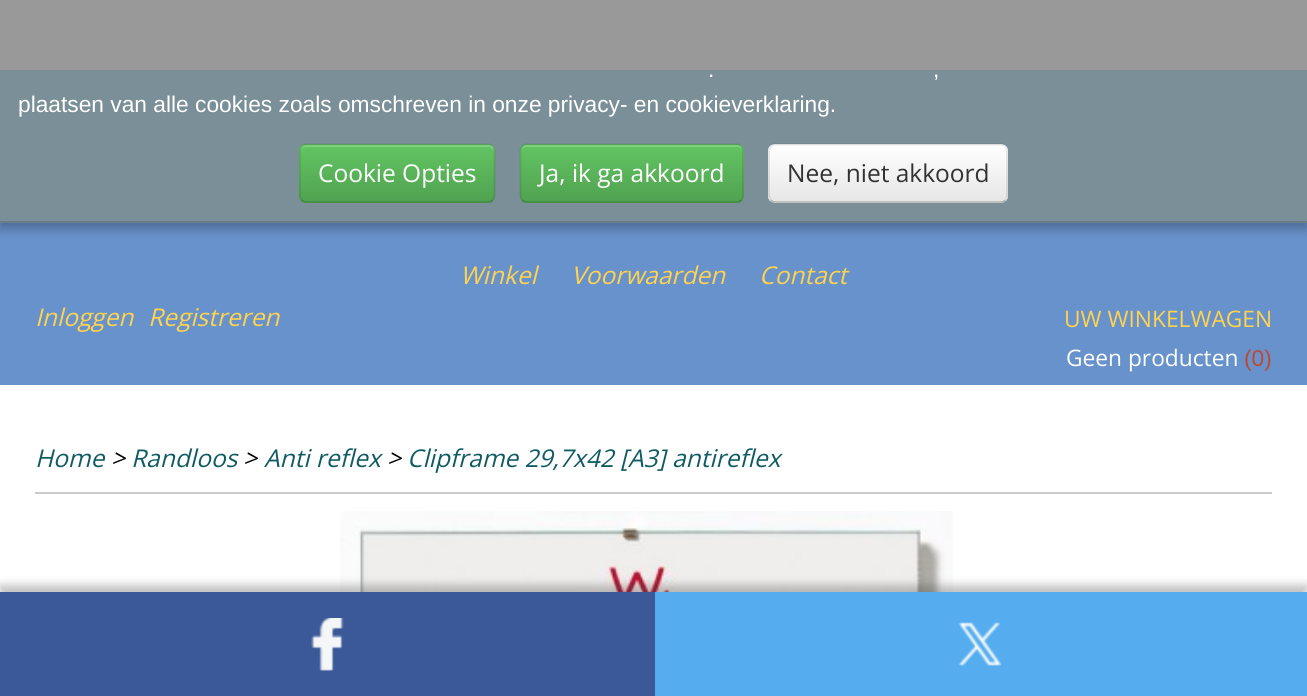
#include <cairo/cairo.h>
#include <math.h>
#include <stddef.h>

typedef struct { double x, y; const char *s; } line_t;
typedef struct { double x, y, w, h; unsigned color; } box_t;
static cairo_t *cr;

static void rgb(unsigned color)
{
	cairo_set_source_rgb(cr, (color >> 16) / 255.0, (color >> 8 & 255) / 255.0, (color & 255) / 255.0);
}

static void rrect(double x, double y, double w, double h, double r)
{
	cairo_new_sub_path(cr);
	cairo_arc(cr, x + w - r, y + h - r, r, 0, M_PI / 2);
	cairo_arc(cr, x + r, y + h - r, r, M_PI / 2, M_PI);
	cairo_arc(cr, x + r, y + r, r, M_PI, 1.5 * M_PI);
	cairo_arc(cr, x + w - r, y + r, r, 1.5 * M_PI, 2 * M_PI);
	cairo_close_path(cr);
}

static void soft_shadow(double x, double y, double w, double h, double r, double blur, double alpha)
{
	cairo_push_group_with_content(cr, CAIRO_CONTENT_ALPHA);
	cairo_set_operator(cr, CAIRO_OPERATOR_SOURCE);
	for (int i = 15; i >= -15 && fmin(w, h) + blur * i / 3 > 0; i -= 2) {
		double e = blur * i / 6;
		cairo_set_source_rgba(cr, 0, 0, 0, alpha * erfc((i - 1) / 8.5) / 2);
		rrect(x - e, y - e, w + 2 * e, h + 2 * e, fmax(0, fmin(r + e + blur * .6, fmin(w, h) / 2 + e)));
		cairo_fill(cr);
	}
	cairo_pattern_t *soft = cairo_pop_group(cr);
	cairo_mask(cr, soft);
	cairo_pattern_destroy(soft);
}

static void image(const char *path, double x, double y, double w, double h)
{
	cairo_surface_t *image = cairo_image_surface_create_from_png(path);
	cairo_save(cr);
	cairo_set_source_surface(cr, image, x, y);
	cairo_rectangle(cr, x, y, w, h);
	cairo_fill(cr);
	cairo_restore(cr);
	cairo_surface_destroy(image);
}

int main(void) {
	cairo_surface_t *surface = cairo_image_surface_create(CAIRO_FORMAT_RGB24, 1307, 696);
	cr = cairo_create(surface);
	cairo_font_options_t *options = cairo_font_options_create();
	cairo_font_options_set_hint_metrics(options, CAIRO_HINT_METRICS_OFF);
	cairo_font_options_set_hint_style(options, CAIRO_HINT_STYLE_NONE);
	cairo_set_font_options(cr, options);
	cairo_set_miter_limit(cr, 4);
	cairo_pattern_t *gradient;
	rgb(0xffffff);
	cairo_paint(cr);
	rgb(0x6892cb);
	cairo_rectangle(cr, 0, 223, 1307, 162);
	cairo_fill(cr);
	rgb(0x000000);
	soft_shadow(0, 5, 1307, 223, 0, 6, 0.3);
	{
		static const box_t items[] = {
			{0, 0, 1307, 70, 0x999999},
			{0, 70, 1307, 151, 0x7a8f98},
			{0, 221, 1307, 2, 0x697e87},
		};
		for (size_t i = 0; i < sizeof items / sizeof *items; i++) {
			rgb(items[i].color);
			cairo_rectangle(cr, items[i].x, items[i].y, items[i].w, items[i].h);
			cairo_fill(cr);
		}
	}
	rgb(0x5bb75b);
	rrect(299, 144, 196, 59, 7);
	cairo_fill(cr);
	cairo_save(cr);
	rrect(299, 144, 196, 59, 7);
	cairo_clip(cr);
	gradient = cairo_pattern_create_linear(397, 145, 397, 201);
	cairo_pattern_add_color_stop_rgba(gradient, 0, 0.384, 0.769, 0.384, 1);
	cairo_pattern_add_color_stop_rgba(gradient, 1, 0.318, 0.639, 0.318, 1);
	cairo_set_source(cr, gradient);
	cairo_pattern_destroy(gradient);
	cairo_rectangle(cr, 299, 145, 196, 56);
	cairo_fill(cr);
	cairo_restore(cr);
	cairo_set_source_rgba(cr, 1, 1, 1, 0.2);
	cairo_new_path(cr);
	cairo_move_to(cr, 306, 147);
	cairo_line_to(cr, 488, 147);
	cairo_curve_to(cr, 491, 147, 494, 149, 494, 152);
	cairo_line_to(cr, 494, 150);
	cairo_curve_to(cr, 494, 147, 492, 145, 489, 145);
	cairo_line_to(cr, 306, 145);
	cairo_curve_to(cr, 303, 145, 301, 147, 301, 150);
	cairo_line_to(cr, 301, 152);
	cairo_curve_to(cr, 301, 149, 303, 147, 306, 147);
	cairo_close_path(cr);
	cairo_fill(cr);
	cairo_new_path(cr);
	cairo_move_to(cr, 492.5, 200.5);
	cairo_curve_to(cr, 491.5, 201.5, 490, 202, 488, 202);
	cairo_line_to(cr, 306, 202);
	cairo_curve_to(cr, 304.5, 202, 303, 201.5, 302, 200.5);
	cairo_set_source_rgba(cr, 0, 0, 0, 0.25);
	cairo_set_line_width(cr, 1.8);
	cairo_stroke(cr);
	cairo_new_path(cr);
	cairo_move_to(cr, 302, 200.5);
	cairo_curve_to(cr, 301, 199, 300, 197.5, 300, 196);
	cairo_line_to(cr, 300, 150.5);
	cairo_curve_to(cr, 300, 149, 301, 147.5, 302, 146);
	cairo_curve_to(cr, 303, 145, 304.5, 144.5, 306, 144.5);
	cairo_line_to(cr, 488, 144.5);
	cairo_curve_to(cr, 490, 144.5, 491.5, 145, 492.5, 146);
	cairo_curve_to(cr, 493.5, 147.5, 494.5, 149, 494.5, 150.5);
	cairo_line_to(cr, 494.5, 196);
	cairo_curve_to(cr, 494.5, 197.5, 493.5, 199, 492.5, 200.5);
	cairo_set_source_rgba(cr, 0, 0, 0, 0.1);
	cairo_stroke(cr);
	rgb(0x5bb75b);
	rrect(520, 144, 224, 59, 7);
	cairo_fill(cr);
	cairo_save(cr);
	rrect(520, 144, 224, 59, 7);
	cairo_clip(cr);
	gradient = cairo_pattern_create_linear(632, 145, 632, 201);
	cairo_pattern_add_color_stop_rgba(gradient, 0, 0.384, 0.769, 0.384, 1);
	cairo_pattern_add_color_stop_rgba(gradient, 1, 0.318, 0.639, 0.318, 1);
	cairo_set_source(cr, gradient);
	cairo_pattern_destroy(gradient);
	cairo_rectangle(cr, 520, 145, 224, 56);
	cairo_fill(cr);
	cairo_restore(cr);
	cairo_set_source_rgba(cr, 1, 1, 1, 0.2);
	cairo_new_path(cr);
	cairo_move_to(cr, 527, 147);
	cairo_line_to(cr, 737, 147);
	cairo_curve_to(cr, 740, 147, 742, 149, 742, 152);
	cairo_line_to(cr, 742, 150);
	cairo_curve_to(cr, 742, 147, 740, 145, 737, 145);
	cairo_line_to(cr, 527, 145);
	cairo_curve_to(cr, 524, 145, 522, 147, 522, 150);
	cairo_line_to(cr, 522, 152);
	cairo_curve_to(cr, 522, 149, 524, 147, 527, 147);
	cairo_close_path(cr);
	cairo_fill(cr);
	cairo_new_path(cr);
	cairo_move_to(cr, 741, 200.5);
	cairo_curve_to(cr, 740, 201.5, 738.5, 202, 737, 202);
	cairo_line_to(cr, 527, 202);
	cairo_curve_to(cr, 525, 202, 523.5, 201.5, 522.5, 200.5);
	cairo_set_source_rgba(cr, 0, 0, 0, 0.25);
	cairo_stroke(cr);
	cairo_new_path(cr);
	cairo_move_to(cr, 522.5, 200.5);
	cairo_curve_to(cr, 521.5, 199, 520.5, 197.5, 520.5, 196);
	cairo_line_to(cr, 520.5, 150.5);
	cairo_curve_to(cr, 520.5, 149, 521.5, 147.5, 522.5, 146);
	cairo_curve_to(cr, 523.5, 145, 525, 144.5, 527, 144.5);
	cairo_line_to(cr, 737, 144.5);
	cairo_curve_to(cr, 738.5, 144.5, 740, 145, 741, 146);
	cairo_curve_to(cr, 742, 147.5, 743, 149, 743, 150.5);
	cairo_line_to(cr, 743, 196);
	cairo_curve_to(cr, 743, 197.5, 742, 199, 741, 200.5);
	cairo_set_source_rgba(cr, 0, 0, 0, 0.1);
	cairo_stroke(cr);
	rgb(0xf5f5f5);
	rrect(768, 144, 240, 59, 7);
	cairo_fill(cr);
	cairo_save(cr);
	rrect(768, 144, 240, 59, 7);
	cairo_clip(cr);
	gradient = cairo_pattern_create_linear(888, 145, 888, 201);
	cairo_pattern_add_color_stop_rgba(gradient, 0, 1, 1, 1, 1);
	cairo_pattern_add_color_stop_rgba(gradient, 1, 0.902, 0.902, 0.902, 1);
	cairo_set_source(cr, gradient);
	cairo_pattern_destroy(gradient);
	cairo_rectangle(cr, 768, 145, 240, 56);
	cairo_fill(cr);
	cairo_restore(cr);
	cairo_new_path(cr);
	cairo_move_to(cr, 1005.5, 200.5);
	cairo_curve_to(cr, 1004, 201.5, 1002.5, 202, 1001, 202);
	cairo_line_to(cr, 775, 202);
	cairo_curve_to(cr, 773.5, 202, 772, 201.5, 771, 200.5);
	cairo_set_source_rgba(cr, 0, 0, 0, 0.25);
	cairo_stroke(cr);
	cairo_new_path(cr);
	cairo_move_to(cr, 771, 200.5);
	cairo_curve_to(cr, 770, 199, 769, 197.5, 769, 196);
	cairo_line_to(cr, 769, 150.5);
	cairo_curve_to(cr, 769, 149, 770, 147.5, 771, 146);
	cairo_curve_to(cr, 772, 145, 773.5, 144.5, 775, 144.5);
	cairo_line_to(cr, 1001, 144.5);
	cairo_curve_to(cr, 1002.5, 144.5, 1004, 145, 1005.5, 146);
	cairo_curve_to(cr, 1006.5, 147.5, 1007, 149, 1007, 150.5);
	cairo_line_to(cr, 1007, 196);
	cairo_curve_to(cr, 1007, 197.5, 1006.5, 199, 1005.5, 200.5);
	cairo_set_source_rgba(cr, 0, 0, 0, 0.1);
	cairo_stroke(cr);
	rgb(0xcccccc);
	cairo_rectangle(cr, 35, 492, 1237, 2);
	cairo_fill(cr);
	image("img/1.png", 340, 511, 613, 81);
	rgb(0x323232);
	soft_shadow(0, 585, 1307, 105, 0, 4.5, 0.3);
	rgb(0x3b5998);
	cairo_rectangle(cr, 0, 592, 655, 104);
	cairo_fill(cr);
	image("img/2.png", 311, 618, 33, 53);
	rgb(0x55acee);
	cairo_rectangle(cr, 655, 592, 652, 104);
	cairo_fill(cr);
	image("img/3.png", 958, 622, 44, 44);
	cairo_select_font_face(cr, "Liberation Sans", CAIRO_FONT_SLANT_NORMAL, CAIRO_FONT_WEIGHT_NORMAL);
	cairo_set_font_size(cr, 22.75);
	rgb(0xffffff);
	{
		static const line_t items[] = {
			{708, 77, "."},
			{933, 77, ","},
			{18, 112, "plaatsen van alle cookies zoals omschreven in onze privacy- en cookieverklaring."},
		};
		for (size_t i = 0; i < sizeof items / sizeof *items; i++) {
			cairo_move_to(cr, items[i].x, items[i].y);
			cairo_show_text(cr, items[i].s);
		}
	}
	cairo_select_font_face(cr, "Open Sans", CAIRO_FONT_SLANT_NORMAL, CAIRO_FONT_WEIGHT_NORMAL);
	cairo_set_font_size(cr, 24.5);
	cairo_move_to(cr, 318, 182);
	cairo_show_text(cr, "Cookie Opties");
	cairo_move_to(cr, 539, 182);
	cairo_show_text(cr, "Ja, ik ga akkoord");
	rgb(0x333333);
	cairo_move_to(cr, 787, 182);
	cairo_show_text(cr, "Nee, niet akkoord");
	cairo_select_font_face(cr, "Open Sans", CAIRO_FONT_SLANT_ITALIC, CAIRO_FONT_WEIGHT_NORMAL);
	rgb(0xffd34e);
	{
		static const line_t items[] = {
			{460, 284, "Winkel"},
			{571, 284, "Voorwaarden"},
			{759, 284, "Contact"},
			{35, 326, "Inloggen"},
			{148, 326, "Registreren"},
		};
		for (size_t i = 0; i < sizeof items / sizeof *items; i++) {
			cairo_move_to(cr, items[i].x, items[i].y);
			cairo_show_text(cr, items[i].s);
		}
	}
	cairo_select_font_face(cr, "Open Sans", CAIRO_FONT_SLANT_NORMAL, CAIRO_FONT_WEIGHT_NORMAL);
	cairo_set_font_size(cr, 22.75);
	cairo_move_to(cr, 1064, 327);
	cairo_show_text(cr, "UW WINKELWAGEN");
	rgb(0xffffff);
	cairo_move_to(cr, 1066, 366);
	cairo_show_text(cr, "Geen producten");
	cairo_select_font_face(cr, "Liberation Sans", CAIRO_FONT_SLANT_NORMAL, CAIRO_FONT_WEIGHT_NORMAL);
	rgb(0xbd4932);
	cairo_move_to(cr, 1244, 366);
	cairo_show_text(cr, "(0)");
	cairo_select_font_face(cr, "Open Sans", CAIRO_FONT_SLANT_ITALIC, CAIRO_FONT_WEIGHT_NORMAL);
	cairo_set_font_size(cr, 24.5);
	rgb(0x105b63);
	cairo_move_to(cr, 35, 467);
	cairo_show_text(cr, "Home");
	rgb(0x000000);
	cairo_move_to(cr, 111, 467);
	cairo_show_text(cr, ">");
	rgb(0x105b63);
	cairo_move_to(cr, 131, 467);
	cairo_show_text(cr, "Randloos");
	rgb(0x000000);
	cairo_move_to(cr, 243, 467);
	cairo_show_text(cr, ">");
	rgb(0x105b63);
	cairo_move_to(cr, 264, 467);
	cairo_show_text(cr, "Anti reflex");
	rgb(0x000000);
	cairo_move_to(cr, 387, 467);
	cairo_show_text(cr, ">");
	rgb(0x105b63);
	cairo_move_to(cr, 407, 467);
	cairo_show_text(cr, "Clipframe 29,7x42 [A3] antireflex");
	cairo_surface_write_to_png(surface, "page.png");
	cairo_font_options_destroy(options);
	cairo_destroy(cr);
	cairo_surface_destroy(surface);
	return 0;
}
